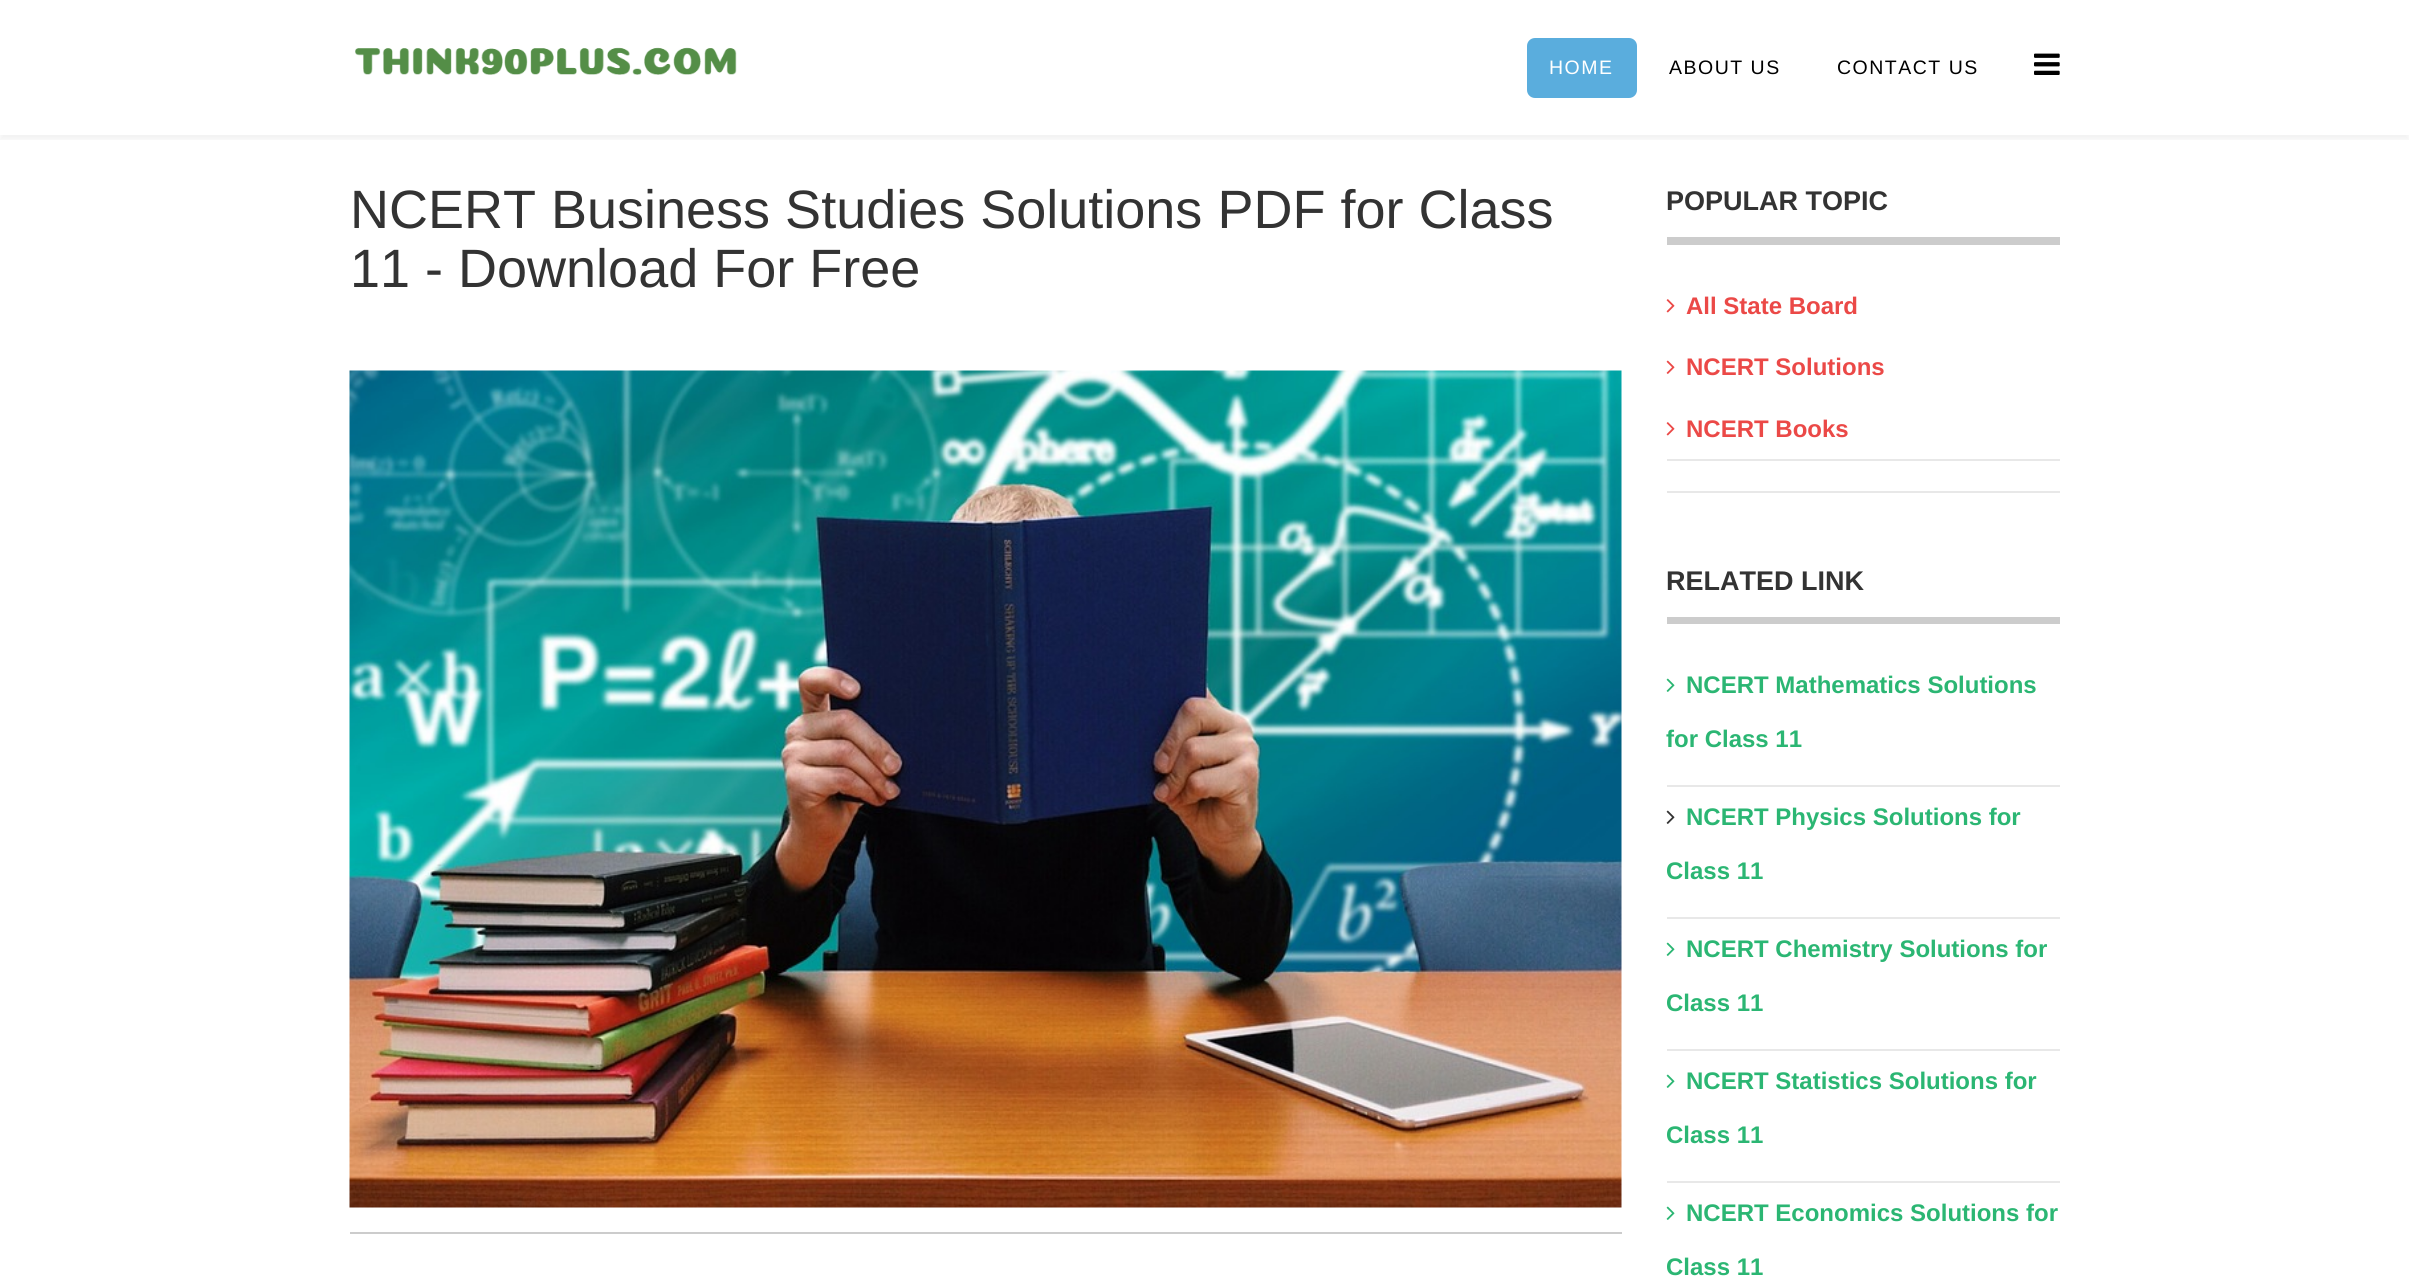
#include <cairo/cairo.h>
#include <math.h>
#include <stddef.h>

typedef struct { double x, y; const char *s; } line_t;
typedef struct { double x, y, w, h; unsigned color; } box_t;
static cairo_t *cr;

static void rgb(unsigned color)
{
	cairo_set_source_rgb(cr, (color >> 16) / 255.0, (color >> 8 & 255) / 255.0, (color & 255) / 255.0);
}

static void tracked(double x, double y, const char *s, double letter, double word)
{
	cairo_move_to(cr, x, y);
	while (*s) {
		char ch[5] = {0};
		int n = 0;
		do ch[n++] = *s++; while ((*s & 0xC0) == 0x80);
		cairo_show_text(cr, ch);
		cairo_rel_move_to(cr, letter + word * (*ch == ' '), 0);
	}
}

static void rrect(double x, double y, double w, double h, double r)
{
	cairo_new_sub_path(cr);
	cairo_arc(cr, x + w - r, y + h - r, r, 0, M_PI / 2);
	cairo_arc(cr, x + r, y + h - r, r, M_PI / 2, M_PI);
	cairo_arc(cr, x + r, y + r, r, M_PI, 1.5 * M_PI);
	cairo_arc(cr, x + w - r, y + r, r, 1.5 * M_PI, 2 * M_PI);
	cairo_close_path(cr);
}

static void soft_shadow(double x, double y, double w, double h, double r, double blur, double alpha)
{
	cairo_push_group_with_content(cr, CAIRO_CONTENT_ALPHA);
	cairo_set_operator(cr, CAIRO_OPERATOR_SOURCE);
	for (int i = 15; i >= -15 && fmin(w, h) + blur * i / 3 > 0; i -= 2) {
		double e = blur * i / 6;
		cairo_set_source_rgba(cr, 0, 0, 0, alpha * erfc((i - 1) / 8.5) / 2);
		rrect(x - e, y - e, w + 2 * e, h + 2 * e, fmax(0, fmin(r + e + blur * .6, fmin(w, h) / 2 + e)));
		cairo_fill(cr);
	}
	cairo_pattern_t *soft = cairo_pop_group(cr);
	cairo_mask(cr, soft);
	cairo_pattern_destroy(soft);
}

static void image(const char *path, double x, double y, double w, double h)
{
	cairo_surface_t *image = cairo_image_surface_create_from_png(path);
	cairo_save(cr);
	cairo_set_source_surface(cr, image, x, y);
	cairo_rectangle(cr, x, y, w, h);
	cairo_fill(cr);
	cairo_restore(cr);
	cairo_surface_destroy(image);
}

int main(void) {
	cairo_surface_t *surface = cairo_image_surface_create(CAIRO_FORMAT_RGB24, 2409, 1281);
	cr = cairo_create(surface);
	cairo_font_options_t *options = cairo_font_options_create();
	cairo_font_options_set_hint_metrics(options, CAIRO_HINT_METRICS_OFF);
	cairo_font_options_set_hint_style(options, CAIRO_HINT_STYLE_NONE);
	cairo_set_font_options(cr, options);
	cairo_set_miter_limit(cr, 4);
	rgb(0xffffff);
	cairo_paint(cr);
	cairo_save(cr);
	cairo_rectangle(cr, 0, 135, 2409, 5);
	cairo_clip(cr);
	rgb(0x000000);
	soft_shadow(0, 5, 2409, 135, 0, 2, 0.05);
	cairo_restore(cr);
	image("img/1.png", 355, 47, 382, 28);
	rgb(0x5aaddd);
	rrect(1527, 38, 110, 60, 8);
	cairo_fill(cr);
	image("img/2.png", 2034, 53, 26, 22);
	image("img/3.png", 349, 370, 1273, 838);
	{
		static const box_t items[] = {
			{350, 1232, 1272, 2, 0xcccccc},
			{1667, 237, 393, 8, 0xcccccc},
			{1667, 459, 393, 2, 0xe8e8e8},
		};
		for (size_t i = 0; i < sizeof items / sizeof *items; i++) {
			rgb(items[i].color);
			cairo_rectangle(cr, items[i].x, items[i].y, items[i].w, items[i].h);
			cairo_fill(cr);
		}
	}
	image("img/4.png", 1666, 299, 9, 14);
	image("img/5.png", 1666, 360, 9, 14);
	image("img/4.png", 1666, 422, 9, 14);
	{
		static const box_t items[] = {
			{1667, 491, 393, 2, 0xe8e8e8},
			{1667, 617, 393, 7, 0xcccccc},
			{1667, 785, 393, 2, 0xe8e8e8},
		};
		for (size_t i = 0; i < sizeof items / sizeof *items; i++) {
			rgb(items[i].color);
			cairo_rectangle(cr, items[i].x, items[i].y, items[i].w, items[i].h);
			cairo_fill(cr);
		}
	}
	image("img/6.png", 1666, 678, 9, 14);
	cairo_rectangle(cr, 1667, 917, 393, 2);
	cairo_fill(cr);
	image("img/7.png", 1666, 810, 9, 14);
	cairo_rectangle(cr, 1667, 1049, 393, 2);
	cairo_fill(cr);
	image("img/6.png", 1666, 942, 9, 14);
	cairo_rectangle(cr, 1667, 1181, 393, 2);
	cairo_fill(cr);
	image("img/6.png", 1666, 1074, 9, 14);
	image("img/6.png", 1666, 1206, 9, 14);
	cairo_select_font_face(cr, "Liberation Sans", CAIRO_FONT_SLANT_NORMAL, CAIRO_FONT_WEIGHT_NORMAL);
	cairo_set_font_size(cr, 19.5);
	rgb(0xffffff);
	tracked(1549, 74, "HOME", 1.5, 0);
	rgb(0x000000);
	tracked(1669, 74, "ABOUT US", 1.5, 0);
	tracked(1837, 74, "CONTACT US", 1.5, 0);
	cairo_set_font_size(cr, 54);
	rgb(0x333333);
	cairo_move_to(cr, 350, 228);
	cairo_show_text(cr, "NCERT Business Studies Solutions PDF for Class");
	cairo_move_to(cr, 350, 287);
	cairo_show_text(cr, "11 - Download For Free");
	cairo_select_font_face(cr, "Liberation Sans", CAIRO_FONT_SLANT_NORMAL, CAIRO_FONT_WEIGHT_BOLD);
	cairo_set_font_size(cr, 27);
	cairo_move_to(cr, 1666, 210);
	cairo_show_text(cr, "POPULAR TOPIC");
	cairo_set_font_size(cr, 24);
	rgb(0xeb4947);
	{
		static const line_t items[] = {
			{1686, 314, "All State Board"},
			{1686, 375, "NCERT Solutions"},
			{1686, 437, "NCERT Books"},
		};
		for (size_t i = 0; i < sizeof items / sizeof *items; i++) {
			cairo_move_to(cr, items[i].x, items[i].y);
			cairo_show_text(cr, items[i].s);
		}
	}
	cairo_set_font_size(cr, 27);
	rgb(0x333333);
	cairo_move_to(cr, 1666, 590);
	cairo_show_text(cr, "RELATED LINK");
	cairo_set_font_size(cr, 24);
	rgb(0x2bb673);
	{
		static const line_t items[] = {
			{1686, 693, "NCERT Mathematics Solutions"},
			{1666, 747, "for Class 11"},
			{1686, 825, "NCERT Physics Solutions for"},
			{1666, 879, "Class 11"},
			{1686, 957, "NCERT Chemistry Solutions for"},
			{1666, 1011, "Class 11"},
			{1686, 1089, "NCERT Statistics Solutions for"},
			{1666, 1143, "Class 11"},
			{1686, 1221, "NCERT Economics Solutions for"},
			{1666, 1275, "Class 11"},
		};
		for (size_t i = 0; i < sizeof items / sizeof *items; i++) {
			cairo_move_to(cr, items[i].x, items[i].y);
			cairo_show_text(cr, items[i].s);
		}
	}
	cairo_surface_write_to_png(surface, "page.png");
	cairo_font_options_destroy(options);
	cairo_destroy(cr);
	cairo_surface_destroy(surface);
	return 0;
}
